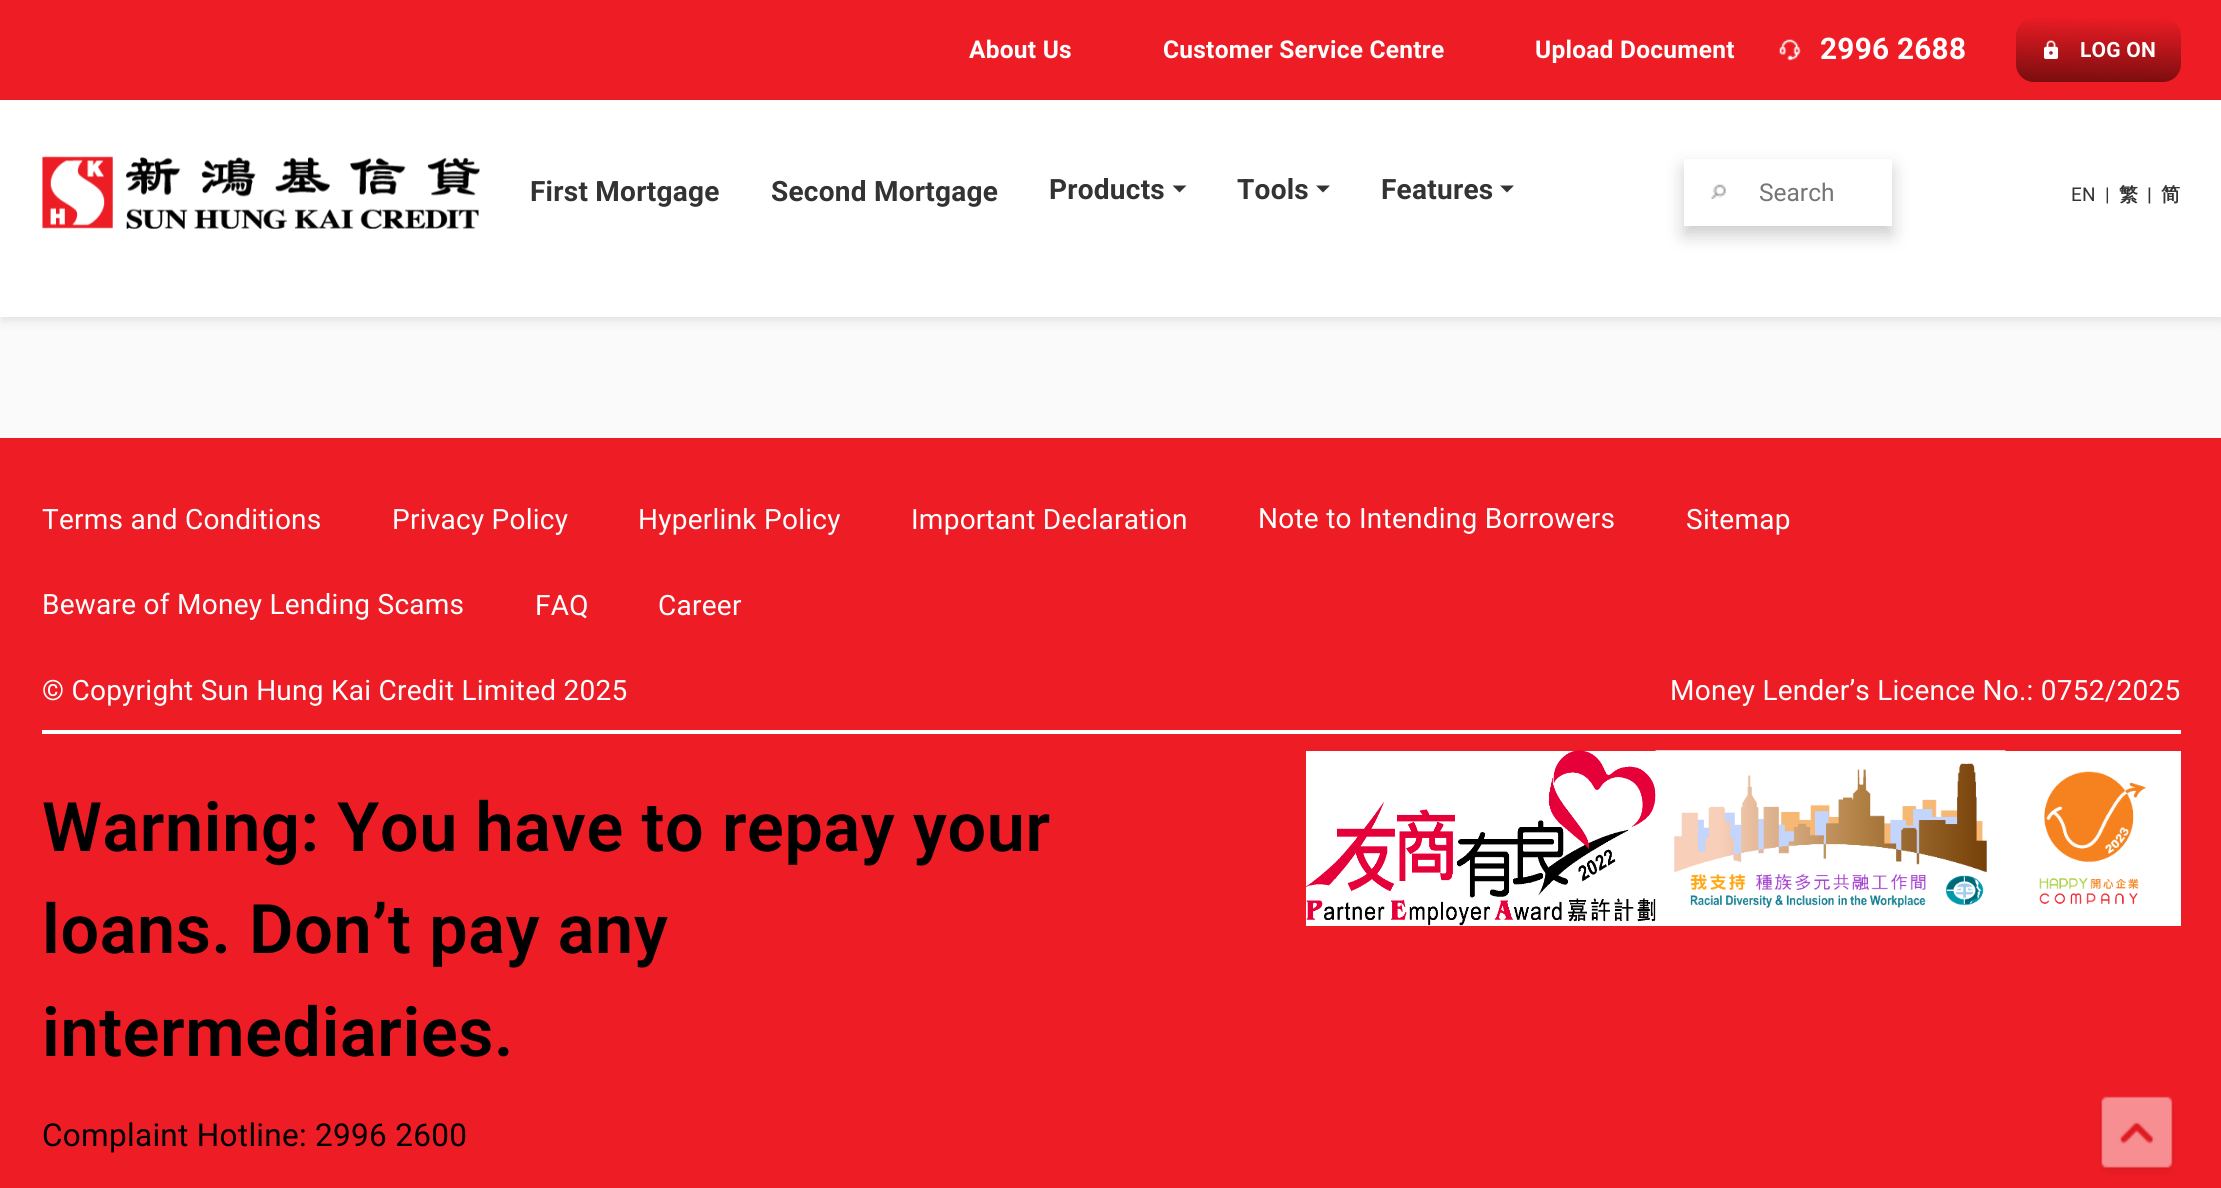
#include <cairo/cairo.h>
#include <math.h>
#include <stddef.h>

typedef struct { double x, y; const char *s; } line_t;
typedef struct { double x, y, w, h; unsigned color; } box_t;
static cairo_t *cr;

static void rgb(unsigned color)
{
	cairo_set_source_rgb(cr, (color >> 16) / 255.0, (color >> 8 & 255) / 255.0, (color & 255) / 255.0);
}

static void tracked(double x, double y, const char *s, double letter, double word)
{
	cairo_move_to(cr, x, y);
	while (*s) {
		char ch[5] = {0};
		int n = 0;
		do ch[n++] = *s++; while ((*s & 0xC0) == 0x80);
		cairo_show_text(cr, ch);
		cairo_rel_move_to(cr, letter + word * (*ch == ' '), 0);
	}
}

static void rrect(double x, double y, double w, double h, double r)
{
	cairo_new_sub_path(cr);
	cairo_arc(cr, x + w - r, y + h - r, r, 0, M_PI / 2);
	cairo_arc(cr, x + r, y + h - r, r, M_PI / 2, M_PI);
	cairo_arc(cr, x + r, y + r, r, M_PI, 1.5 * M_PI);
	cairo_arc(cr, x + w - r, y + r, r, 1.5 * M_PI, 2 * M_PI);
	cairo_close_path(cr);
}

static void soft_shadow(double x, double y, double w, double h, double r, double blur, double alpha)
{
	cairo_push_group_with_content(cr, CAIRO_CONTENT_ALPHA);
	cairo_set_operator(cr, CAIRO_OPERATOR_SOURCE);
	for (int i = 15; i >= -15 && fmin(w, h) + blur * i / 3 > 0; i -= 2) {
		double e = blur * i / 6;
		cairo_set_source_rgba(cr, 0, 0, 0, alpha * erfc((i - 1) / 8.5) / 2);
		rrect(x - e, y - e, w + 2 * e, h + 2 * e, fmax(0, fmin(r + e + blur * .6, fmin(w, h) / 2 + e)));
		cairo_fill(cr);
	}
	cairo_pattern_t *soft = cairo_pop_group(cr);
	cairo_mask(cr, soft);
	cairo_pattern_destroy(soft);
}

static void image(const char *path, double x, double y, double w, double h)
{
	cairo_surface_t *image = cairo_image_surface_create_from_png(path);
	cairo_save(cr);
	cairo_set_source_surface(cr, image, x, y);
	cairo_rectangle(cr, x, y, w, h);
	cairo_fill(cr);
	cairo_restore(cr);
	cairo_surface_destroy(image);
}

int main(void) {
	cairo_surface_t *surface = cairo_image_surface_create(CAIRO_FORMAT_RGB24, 2221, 1188);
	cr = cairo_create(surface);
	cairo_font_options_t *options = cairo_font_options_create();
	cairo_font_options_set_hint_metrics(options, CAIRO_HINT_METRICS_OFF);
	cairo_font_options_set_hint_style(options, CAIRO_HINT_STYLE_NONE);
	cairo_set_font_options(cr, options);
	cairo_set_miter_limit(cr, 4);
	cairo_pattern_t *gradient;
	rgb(0xfafafa);
	cairo_paint(cr);
	rgb(0x000000);
	soft_shadow(0, 7, 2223, 317, 0, 4.5, 0.05);
	soft_shadow(2, 5, 2219, 314, 0, 2, 0.05);
	rgb(0xffffff);
	cairo_rectangle(cr, 0, 100, 2221, 217);
	cairo_fill(cr);
	rgb(0xee1c25);
	cairo_rectangle(cr, 0, 0, 2221, 100);
	cairo_fill(cr);
	image("img/1.png", 1779, 39, 22, 22);
	gradient = cairo_pattern_create_linear(2099, 16, 2098, 84);
	cairo_pattern_add_color_stop_rgba(gradient, 0, 0.933, 0.11, 0.145, 1);
	cairo_pattern_add_color_stop_rgba(gradient, 1, 0.471, 0.051, 0.055, 1);
	cairo_set_source(cr, gradient);
	cairo_pattern_destroy(gradient);
	rrect(2016, 18, 165, 64, 18);
	cairo_fill(cr);
	image("img/2.png", 2044, 40, 14, 19);
	image("img/3.png", 42, 156, 438, 73);
	rgb(0x333333);
	cairo_new_path(cr);
	cairo_move_to(cr, 1172.5, 185.5);
	cairo_line_to(cr, 1186.5, 185.5);
	cairo_line_to(cr, 1179.5, 192.5);
	cairo_close_path(cr);
	cairo_fill(cr);
	cairo_new_path(cr);
	cairo_move_to(cr, 1316, 185.5);
	cairo_line_to(cr, 1330, 185.5);
	cairo_line_to(cr, 1323, 192.5);
	cairo_close_path(cr);
	cairo_fill(cr);
	cairo_new_path(cr);
	cairo_move_to(cr, 1500, 185.5);
	cairo_line_to(cr, 1514, 185.5);
	cairo_line_to(cr, 1507, 192.5);
	cairo_close_path(cr);
	cairo_fill(cr);
	rgb(0x000000);
	soft_shadow(1684, 168, 208, 67, 0, 9, 0.2);
	rgb(0xffffff);
	cairo_rectangle(cr, 1684, 159, 208, 67);
	cairo_fill(cr);
	image("img/4.png", 1711, 184, 15, 15);
	{
		static const box_t items[] = {
			{0, 438, 2221, 750, 0xee1c25},
			{42, 730, 2139, 4, 0xffffff},
			{1306, 751, 875, 175, 0xffffff},
		};
		for (size_t i = 0; i < sizeof items / sizeof *items; i++) {
			rgb(items[i].color);
			cairo_rectangle(cr, items[i].x, items[i].y, items[i].w, items[i].h);
			cairo_fill(cr);
		}
	}
	image("img/5.png", 1306, 750, 350, 176);
	image("img/6.png", 1655, 750, 351, 170);
	image("img/7.png", 2039, 771, 107, 133);
	image("img/8.png", 2099, 1096, 76, 79);
	cairo_select_font_face(cr, "Roboto", CAIRO_FONT_SLANT_NORMAL, CAIRO_FONT_WEIGHT_BOLD);
	cairo_set_font_size(cr, 24.5);
	{
		static const line_t items[] = {
			{969, 58, "About Us"},
			{1163, 58, "Customer Service Centre"},
			{1535, 58, "Upload Document"},
		};
		for (size_t i = 0; i < sizeof items / sizeof *items; i++) {
			tracked(items[i].x, items[i].y, items[i].s, 0.25, 0);
		}
	}
	cairo_set_font_size(cr, 29.75);
	tracked(1820, 59, "2996 2688", 0.25, 0);
	cairo_set_font_size(cr, 21);
	tracked(2080, 57, "LOG ON", 0.25, 0);
	cairo_set_font_size(cr, 28);
	rgb(0x333333);
	{
		static const line_t items[] = {
			{530, 201, "First Mortgage"},
			{771, 201, "Second Mortgage"},
			{1049, 199, "Products"},
			{1237, 199, "Tools"},
			{1381, 199, "Features"},
		};
		for (size_t i = 0; i < sizeof items / sizeof *items; i++) {
			tracked(items[i].x, items[i].y, items[i].s, 0.25, 0);
		}
	}
	cairo_select_font_face(cr, "Roboto", CAIRO_FONT_SLANT_NORMAL, CAIRO_FONT_WEIGHT_NORMAL);
	cairo_set_font_size(cr, 24.5);
	rgb(0x757575);
	cairo_move_to(cr, 1759, 201);
	cairo_show_text(cr, "Search");
	cairo_set_font_size(cr, 19);
	rgb(0x333333);
	tracked(2071, 201, "EN", 0.25, 0);
	tracked(2105, 201, "|", 0.25, 0);
	cairo_select_font_face(cr, "WenQuanYi Zen Hei", CAIRO_FONT_SLANT_NORMAL, CAIRO_FONT_WEIGHT_BOLD);
	tracked(2119, 201, "繁", 0.25, 0);
	cairo_select_font_face(cr, "Roboto", CAIRO_FONT_SLANT_NORMAL, CAIRO_FONT_WEIGHT_BOLD);
	tracked(2147, 201, "|", 0.25, 0);
	cairo_select_font_face(cr, "WenQuanYi Zen Hei", CAIRO_FONT_SLANT_NORMAL, CAIRO_FONT_WEIGHT_BOLD);
	tracked(2161, 201, "简", 0.25, 0);
	cairo_select_font_face(cr, "Roboto", CAIRO_FONT_SLANT_NORMAL, CAIRO_FONT_WEIGHT_NORMAL);
	cairo_set_font_size(cr, 28);
	rgb(0xffffff);
	{
		static const line_t items[] = {
			{42, 529, "Terms and Conditions"},
			{392, 529, "Privacy Policy"},
			{638, 529, "Hyperlink Policy"},
			{911, 529, "Important Declaration"},
			{1258, 528, "Note to Intending Borrowers"},
			{1686, 529, "Sitemap"},
			{42, 614, "Beware of Money Lending Scams"},
			{535, 615, "FAQ"},
			{658, 615, "Career"},
			{42, 700, "© Copyright Sun Hung Kai Credit Limited 2025"},
			{1670, 700, "Money Lender’s Licence No.: 0752/2025"},
		};
		for (size_t i = 0; i < sizeof items / sizeof *items; i++) {
			tracked(items[i].x, items[i].y, items[i].s, 0.25, 0);
		}
	}
	cairo_select_font_face(cr, "Roboto SemiBold", CAIRO_FONT_SLANT_NORMAL, CAIRO_FONT_WEIGHT_NORMAL);
	cairo_set_font_size(cr, 68.25);
	rgb(0x000000);
	{
		static const line_t items[] = {
			{42, 851, "Warning: You have to repay your"},
			{42, 953, "loans. Don’t pay any"},
			{42, 1056, "intermediaries."},
		};
		for (size_t i = 0; i < sizeof items / sizeof *items; i++) {
			tracked(items[i].x, items[i].y, items[i].s, 0.65, 0);
		}
	}
	cairo_select_font_face(cr, "Roboto", CAIRO_FONT_SLANT_NORMAL, CAIRO_FONT_WEIGHT_NORMAL);
	cairo_set_font_size(cr, 31.5);
	tracked(42, 1146, "Complaint Hotline: 2996 2600", 0.3, 0);
	cairo_surface_write_to_png(surface, "page.png");
	cairo_font_options_destroy(options);
	cairo_destroy(cr);
	cairo_surface_destroy(surface);
	return 0;
}
